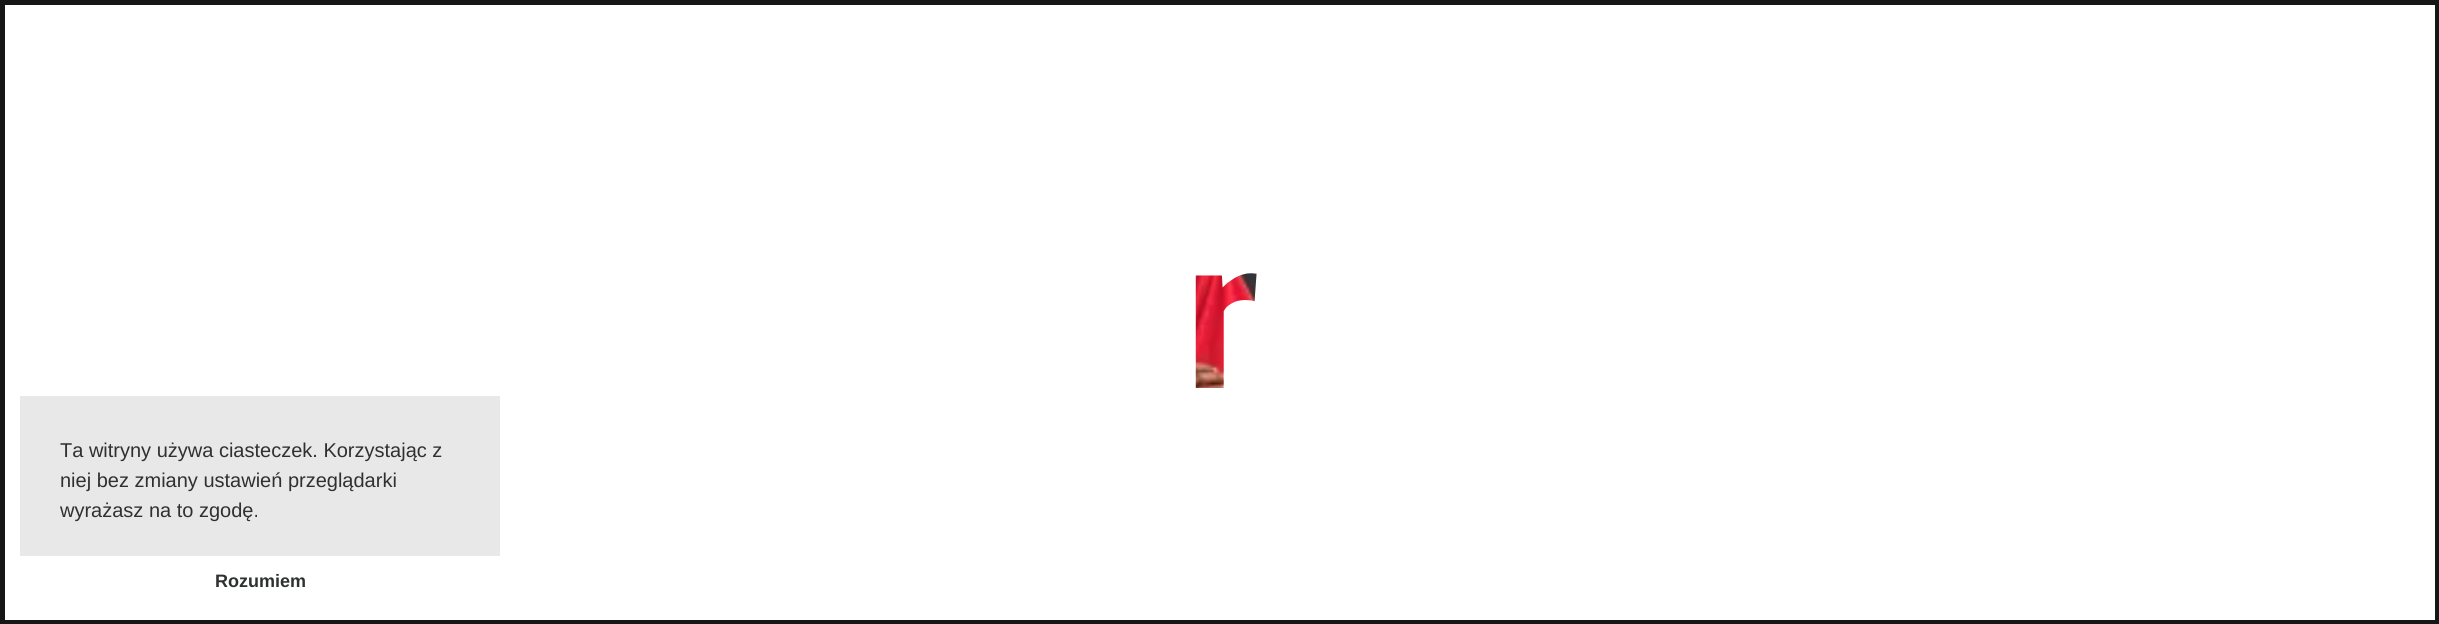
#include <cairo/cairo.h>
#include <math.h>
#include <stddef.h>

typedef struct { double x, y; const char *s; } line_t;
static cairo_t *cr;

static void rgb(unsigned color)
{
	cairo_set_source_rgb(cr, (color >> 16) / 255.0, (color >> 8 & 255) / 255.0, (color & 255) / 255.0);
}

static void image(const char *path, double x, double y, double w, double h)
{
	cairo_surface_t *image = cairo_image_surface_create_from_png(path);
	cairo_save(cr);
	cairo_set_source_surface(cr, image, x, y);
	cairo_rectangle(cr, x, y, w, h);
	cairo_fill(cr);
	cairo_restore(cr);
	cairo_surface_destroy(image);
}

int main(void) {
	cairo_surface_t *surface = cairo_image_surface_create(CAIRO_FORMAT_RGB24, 2439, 624);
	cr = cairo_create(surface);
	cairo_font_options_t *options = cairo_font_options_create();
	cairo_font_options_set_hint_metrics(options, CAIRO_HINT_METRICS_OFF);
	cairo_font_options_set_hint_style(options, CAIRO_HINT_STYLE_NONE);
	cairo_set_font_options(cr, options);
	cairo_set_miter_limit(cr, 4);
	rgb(0xffffff);
	cairo_paint(cr);
	image("img/1.png", 1195, 273, 62, 115);
	cairo_rectangle(cr, 2.5, 2.5, 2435, 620);
	rgb(0x171617);
	cairo_set_line_width(cr, 5);
	cairo_stroke(cr);
	rgb(0xe9e8e8);
	cairo_rectangle(cr, 20, 396, 480, 160);
	cairo_fill(cr);
	cairo_select_font_face(cr, "Liberation Sans", CAIRO_FONT_SLANT_NORMAL, CAIRO_FONT_WEIGHT_NORMAL);
	cairo_set_font_size(cr, 20);
	rgb(0x2f3131);
	{
		static const line_t items[] = {
			{60, 457, "Ta witryny używa ciasteczek. Korzystając z"},
			{60, 487, "niej bez zmiany ustawień przeglądarki"},
			{60, 517, "wyrażasz na to zgodę."},
		};
		for (size_t i = 0; i < sizeof items / sizeof *items; i++) {
			cairo_move_to(cr, items[i].x, items[i].y);
			cairo_show_text(cr, items[i].s);
		}
	}
	cairo_select_font_face(cr, "Liberation Sans", CAIRO_FONT_SLANT_NORMAL, CAIRO_FONT_WEIGHT_BOLD);
	cairo_set_font_size(cr, 18);
	cairo_move_to(cr, 215, 587);
	cairo_show_text(cr, "Rozumiem");
	cairo_surface_write_to_png(surface, "page.png");
	cairo_font_options_destroy(options);
	cairo_destroy(cr);
	cairo_surface_destroy(surface);
	return 0;
}
